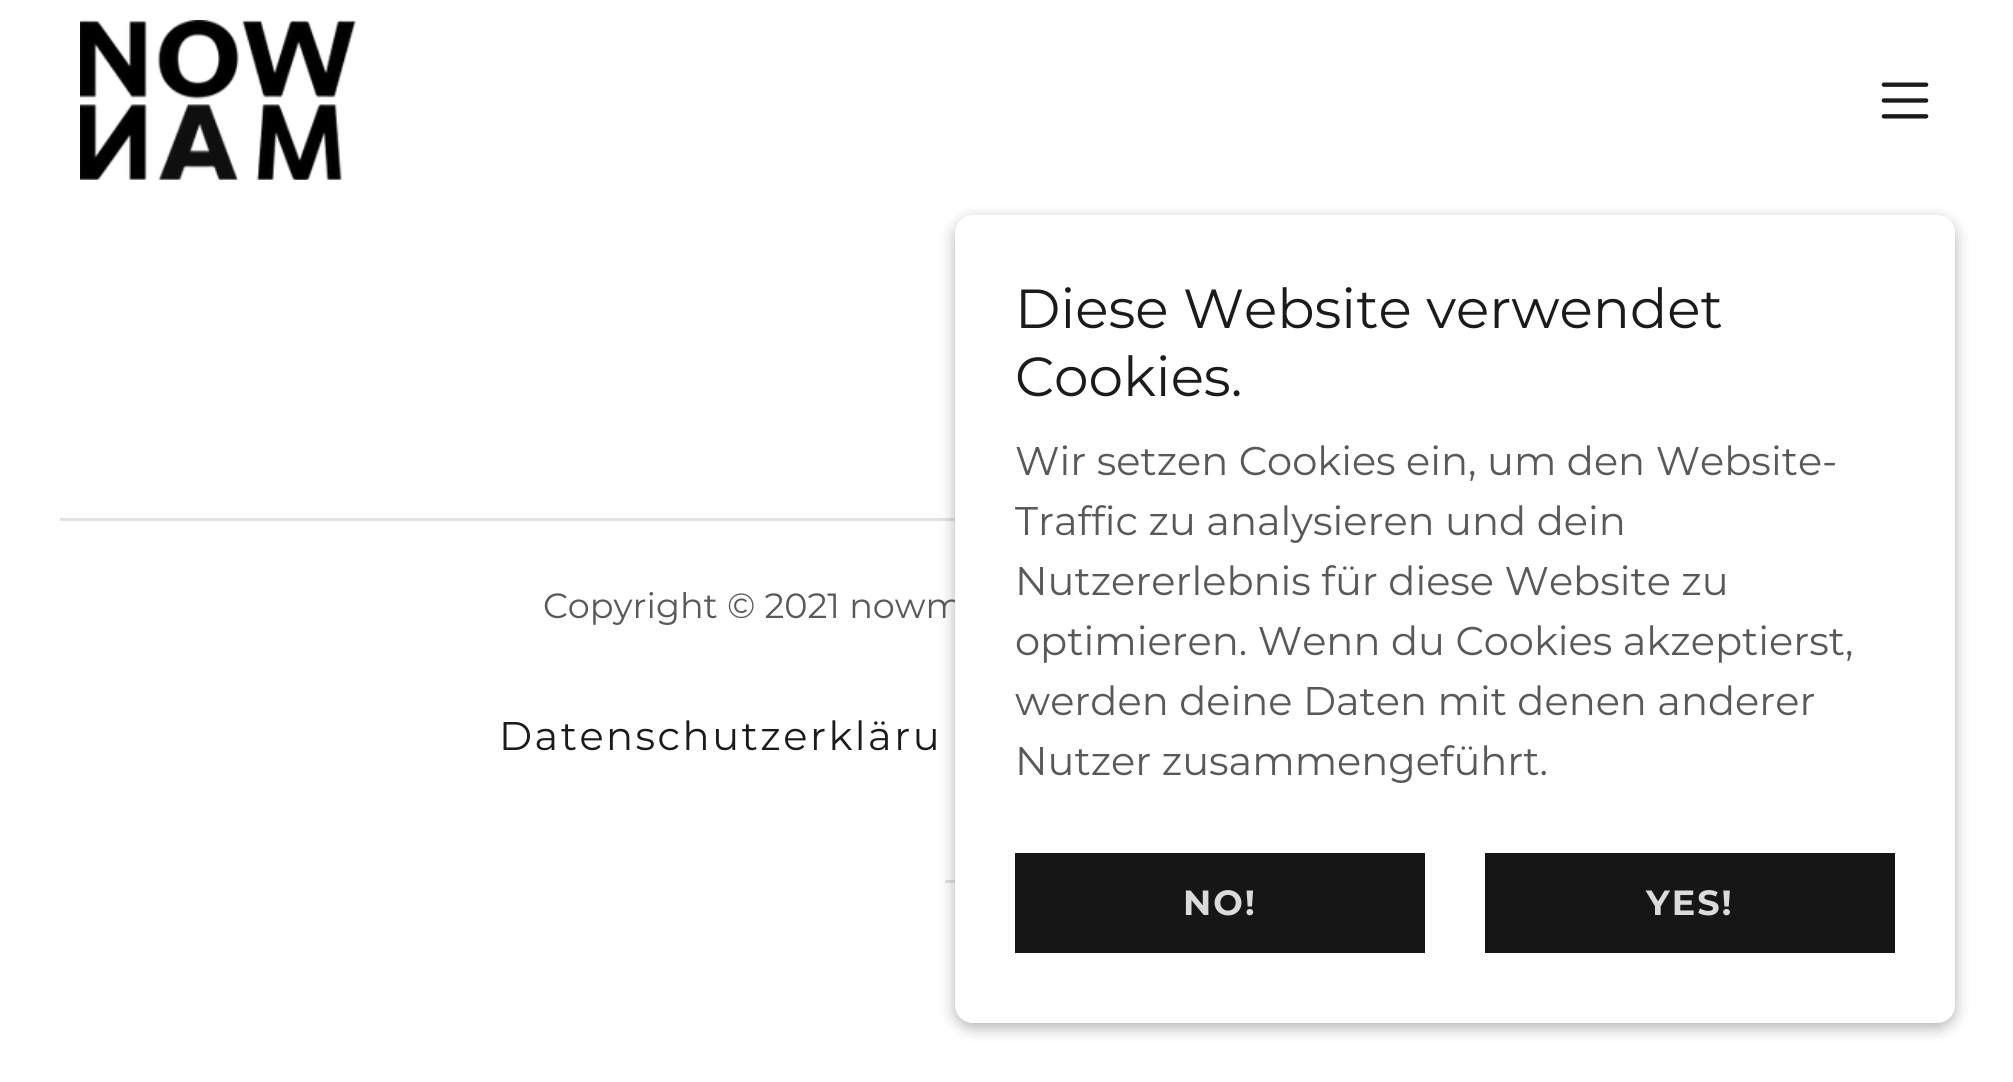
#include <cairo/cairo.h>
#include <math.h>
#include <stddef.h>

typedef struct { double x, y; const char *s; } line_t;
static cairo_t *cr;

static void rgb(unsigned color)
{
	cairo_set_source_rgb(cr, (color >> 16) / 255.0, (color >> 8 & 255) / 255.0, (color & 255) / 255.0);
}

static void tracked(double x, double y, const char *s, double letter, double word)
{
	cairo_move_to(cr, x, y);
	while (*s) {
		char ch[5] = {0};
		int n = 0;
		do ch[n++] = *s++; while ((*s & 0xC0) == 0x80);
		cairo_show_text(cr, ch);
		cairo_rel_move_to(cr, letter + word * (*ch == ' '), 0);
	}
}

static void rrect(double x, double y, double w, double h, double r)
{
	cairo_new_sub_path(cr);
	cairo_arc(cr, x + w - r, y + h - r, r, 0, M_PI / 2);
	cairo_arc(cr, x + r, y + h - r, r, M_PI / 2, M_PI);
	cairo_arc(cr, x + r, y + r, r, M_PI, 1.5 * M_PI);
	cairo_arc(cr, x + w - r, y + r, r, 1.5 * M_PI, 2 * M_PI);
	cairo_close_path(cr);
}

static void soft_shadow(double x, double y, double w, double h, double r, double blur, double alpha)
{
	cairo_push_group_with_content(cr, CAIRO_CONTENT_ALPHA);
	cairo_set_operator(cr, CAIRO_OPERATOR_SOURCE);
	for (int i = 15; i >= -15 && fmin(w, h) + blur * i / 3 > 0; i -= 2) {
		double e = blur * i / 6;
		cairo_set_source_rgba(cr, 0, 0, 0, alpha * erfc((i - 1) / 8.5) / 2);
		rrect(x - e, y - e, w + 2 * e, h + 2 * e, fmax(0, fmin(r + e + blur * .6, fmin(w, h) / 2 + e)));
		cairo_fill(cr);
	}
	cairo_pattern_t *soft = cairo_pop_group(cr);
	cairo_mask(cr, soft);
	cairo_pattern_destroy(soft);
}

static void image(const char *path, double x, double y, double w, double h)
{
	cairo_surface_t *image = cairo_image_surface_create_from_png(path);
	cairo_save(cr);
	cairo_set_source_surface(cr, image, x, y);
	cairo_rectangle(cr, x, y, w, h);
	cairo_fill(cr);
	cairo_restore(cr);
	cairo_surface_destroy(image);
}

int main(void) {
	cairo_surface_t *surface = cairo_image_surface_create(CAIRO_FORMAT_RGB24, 2013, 1082);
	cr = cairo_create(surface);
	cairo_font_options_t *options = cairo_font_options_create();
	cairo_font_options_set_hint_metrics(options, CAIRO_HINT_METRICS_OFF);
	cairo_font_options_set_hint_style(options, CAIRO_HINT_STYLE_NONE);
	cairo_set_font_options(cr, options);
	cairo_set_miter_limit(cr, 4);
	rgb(0xffffff);
	cairo_paint(cr);
	image("img/1.png", 80, 20, 276, 160);
	image("img/2.png", 1881, 82, 48, 37);
	rgb(0xe2e2e2);
	cairo_rectangle(cr, 60, 518, 895, 3);
	cairo_fill(cr);
	cairo_rectangle(cr, 945, 880, 10, 3);
	cairo_fill(cr);
	rgb(0x000000);
	soft_shadow(955, 220, 1000, 808, 18, 7.5, 0.3);
	cairo_select_font_face(cr, "Montserrat", CAIRO_FONT_SLANT_NORMAL, CAIRO_FONT_WEIGHT_NORMAL);
	cairo_set_font_size(cr, 35);
	rgb(0x595959);
	cairo_move_to(cr, 543, 618);
	cairo_show_text(cr, "Copyright © 2021 nowm");
	cairo_set_font_size(cr, 40);
	rgb(0x1b1b1b);
	tracked(499, 750, "Datenschutzerkläru", 2.5, 0);
	rgb(0xffffff);
	rrect(955, 215, 1000, 808, 18);
	cairo_fill(cr);
	cairo_set_font_size(cr, 55);
	rgb(0x1b1b1b);
	cairo_move_to(cr, 1015, 328);
	cairo_show_text(cr, "Diese Website verwendet");
	cairo_move_to(cr, 1015, 396);
	cairo_show_text(cr, "Cookies.");
	cairo_set_font_size(cr, 40);
	rgb(0x595959);
	{
		static const line_t items[] = {
			{1015, 475, "Wir setzen Cookies ein, um den Website-"},
			{1015, 535, "Traffic zu analysieren und dein"},
			{1015, 595, "Nutzererlebnis für diese Website zu"},
			{1015, 655, "optimieren. Wenn du Cookies akzeptierst,"},
			{1015, 715, "werden deine Daten mit denen anderer"},
			{1015, 775, "Nutzer zusammengeführt."},
		};
		for (size_t i = 0; i < sizeof items / sizeof *items; i++) {
			cairo_move_to(cr, items[i].x, items[i].y);
			cairo_show_text(cr, items[i].s);
		}
	}
	rgb(0x161616);
	cairo_rectangle(cr, 1015, 853, 410, 100);
	cairo_fill(cr);
	cairo_select_font_face(cr, "Montserrat", CAIRO_FONT_SLANT_NORMAL, CAIRO_FONT_WEIGHT_BOLD);
	cairo_set_font_size(cr, 35);
	rgb(0xdbdbdb);
	tracked(1183, 915, "NO!", 2, 0);
	rgb(0x161616);
	cairo_rectangle(cr, 1485, 853, 410, 100);
	cairo_fill(cr);
	rgb(0xdbdbdb);
	tracked(1646, 915, "YES!", 2, 0);
	cairo_surface_write_to_png(surface, "page.png");
	cairo_font_options_destroy(options);
	cairo_destroy(cr);
	cairo_surface_destroy(surface);
	return 0;
}
